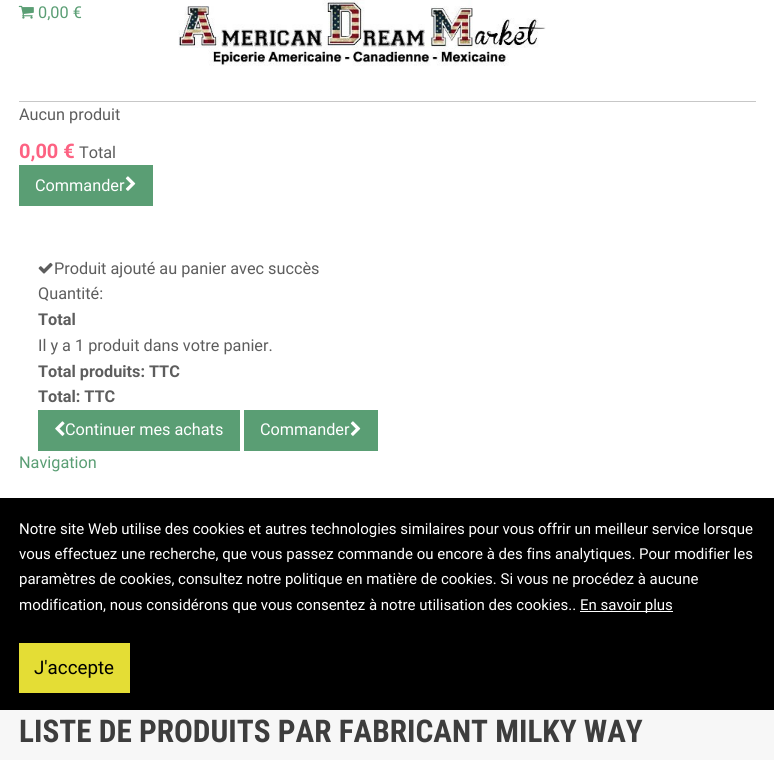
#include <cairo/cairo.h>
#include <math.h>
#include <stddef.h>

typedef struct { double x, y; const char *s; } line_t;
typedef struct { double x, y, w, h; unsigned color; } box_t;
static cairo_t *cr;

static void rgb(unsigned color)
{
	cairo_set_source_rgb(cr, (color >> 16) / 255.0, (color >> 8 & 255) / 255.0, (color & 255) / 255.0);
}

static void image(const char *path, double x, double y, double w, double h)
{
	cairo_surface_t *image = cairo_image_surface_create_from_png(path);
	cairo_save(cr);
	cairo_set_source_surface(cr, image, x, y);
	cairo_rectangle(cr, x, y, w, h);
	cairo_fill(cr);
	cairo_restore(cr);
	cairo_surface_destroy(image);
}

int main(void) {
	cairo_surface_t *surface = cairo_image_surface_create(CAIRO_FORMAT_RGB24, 774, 760);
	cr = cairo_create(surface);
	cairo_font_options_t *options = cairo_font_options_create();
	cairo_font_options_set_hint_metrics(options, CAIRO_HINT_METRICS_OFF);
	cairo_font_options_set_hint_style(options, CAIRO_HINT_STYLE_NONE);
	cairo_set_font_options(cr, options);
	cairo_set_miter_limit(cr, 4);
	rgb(0xffffff);
	cairo_paint(cr);
	image("img/1.png", 18, 5, 16, 14);
	rgb(0xc7c7c7);
	cairo_rectangle(cr, 19, 101, 737, 1);
	cairo_fill(cr);
	rgb(0x5a9e74);
	cairo_rectangle(cr, 19, 165, 134, 41);
	cairo_fill(cr);
	image("img/2.png", 125, 176, 11, 15);
	image("img/3.png", 178, 0, 368, 68);
	image("img/4.png", 38, 262, 15, 12);
	cairo_rectangle(cr, 38, 410, 202, 41);
	cairo_fill(cr);
	image("img/5.png", 55, 421, 10, 15);
	cairo_rectangle(cr, 244, 410, 134, 41);
	cairo_fill(cr);
	image("img/2.png", 350, 421, 11, 15);
	{
		static const box_t items[] = {
			{0, 498, 774, 212, 0x000000},
			{580, 611, 93, 1, 0xffffff},
			{19, 643, 111, 50, 0xe4dd35},
			{0, 710, 774, 50, 0xf7f7f7},
		};
		for (size_t i = 0; i < sizeof items / sizeof *items; i++) {
			rgb(items[i].color);
			cairo_rectangle(cr, items[i].x, items[i].y, items[i].w, items[i].h);
			cairo_fill(cr);
		}
	}
	cairo_select_font_face(cr, "Roboto", CAIRO_FONT_SLANT_NORMAL, CAIRO_FONT_WEIGHT_NORMAL);
	cairo_set_font_size(cr, 16.25);
	rgb(0x5a9e74);
	cairo_move_to(cr, 38, 18);
	cairo_show_text(cr, "0,00 €");
	rgb(0x5d5d5d);
	cairo_move_to(cr, 19, 120);
	cairo_show_text(cr, "Aucun produit");
	cairo_select_font_face(cr, "Roboto", CAIRO_FONT_SLANT_NORMAL, CAIRO_FONT_WEIGHT_BOLD);
	cairo_set_font_size(cr, 20);
	rgb(0xfd6282);
	cairo_move_to(cr, 19, 158);
	cairo_show_text(cr, "0,00 €");
	cairo_select_font_face(cr, "Roboto", CAIRO_FONT_SLANT_NORMAL, CAIRO_FONT_WEIGHT_NORMAL);
	cairo_set_font_size(cr, 16.25);
	rgb(0x5d5d5d);
	cairo_move_to(cr, 79, 158);
	cairo_show_text(cr, "Total");
	rgb(0xffffff);
	cairo_move_to(cr, 35, 191);
	cairo_show_text(cr, "Commander");
	rgb(0x5d5d5d);
	cairo_move_to(cr, 54, 274);
	cairo_show_text(cr, "Produit ajouté au panier avec succès");
	cairo_move_to(cr, 38, 299);
	cairo_show_text(cr, "Quantité:");
	cairo_select_font_face(cr, "Roboto", CAIRO_FONT_SLANT_NORMAL, CAIRO_FONT_WEIGHT_BOLD);
	cairo_move_to(cr, 38, 325);
	cairo_show_text(cr, "Total");
	cairo_select_font_face(cr, "Roboto", CAIRO_FONT_SLANT_NORMAL, CAIRO_FONT_WEIGHT_NORMAL);
	cairo_move_to(cr, 38, 351);
	cairo_show_text(cr, "Il y a 1 produit dans votre panier.");
	cairo_select_font_face(cr, "Roboto", CAIRO_FONT_SLANT_NORMAL, CAIRO_FONT_WEIGHT_BOLD);
	cairo_move_to(cr, 38, 377);
	cairo_show_text(cr, "Total produits: TTC");
	cairo_move_to(cr, 38, 402);
	cairo_show_text(cr, "Total: TTC");
	cairo_select_font_face(cr, "Roboto", CAIRO_FONT_SLANT_NORMAL, CAIRO_FONT_WEIGHT_NORMAL);
	rgb(0xffffff);
	cairo_move_to(cr, 65, 435);
	cairo_show_text(cr, "Continuer mes achats");
	cairo_move_to(cr, 260, 435);
	cairo_show_text(cr, "Commander");
	rgb(0x5a9e74);
	cairo_move_to(cr, 19, 468);
	cairo_show_text(cr, "Navigation");
	cairo_set_font_size(cr, 15);
	rgb(0xffffff);
	{
		static const line_t items[] = {
			{19, 534, "Notre site Web utilise des cookies et autres technologies similaires pour vous offrir un meilleur service lorsque"},
			{19, 559, "vous effectuez une recherche, que vous passez commande ou encore à des fins analytiques. Pour modifier les"},
			{19, 584, "paramètres de cookies, consultez notre politique en matière de cookies. Si vous ne procédez à aucune"},
			{19, 610, "modification, nous considérons que vous consentez à notre utilisation des cookies.."},
			{580, 610, "En savoir plus"},
		};
		for (size_t i = 0; i < sizeof items / sizeof *items; i++) {
			cairo_move_to(cr, items[i].x, items[i].y);
			cairo_show_text(cr, items[i].s);
		}
	}
	cairo_set_font_size(cr, 18.75);
	rgb(0x000000);
	cairo_move_to(cr, 34, 674);
	cairo_show_text(cr, "J'accepte");
	cairo_select_font_face(cr, "Roboto Condensed", CAIRO_FONT_SLANT_NORMAL, CAIRO_FONT_WEIGHT_BOLD);
	cairo_set_font_size(cr, 31.25);
	rgb(0x3d3d3d);
	cairo_move_to(cr, 19, 742);
	cairo_show_text(cr, "LISTE DE PRODUITS PAR FABRICANT MILKY WAY");
	cairo_surface_write_to_png(surface, "page.png");
	cairo_font_options_destroy(options);
	cairo_destroy(cr);
	cairo_surface_destroy(surface);
	return 0;
}
